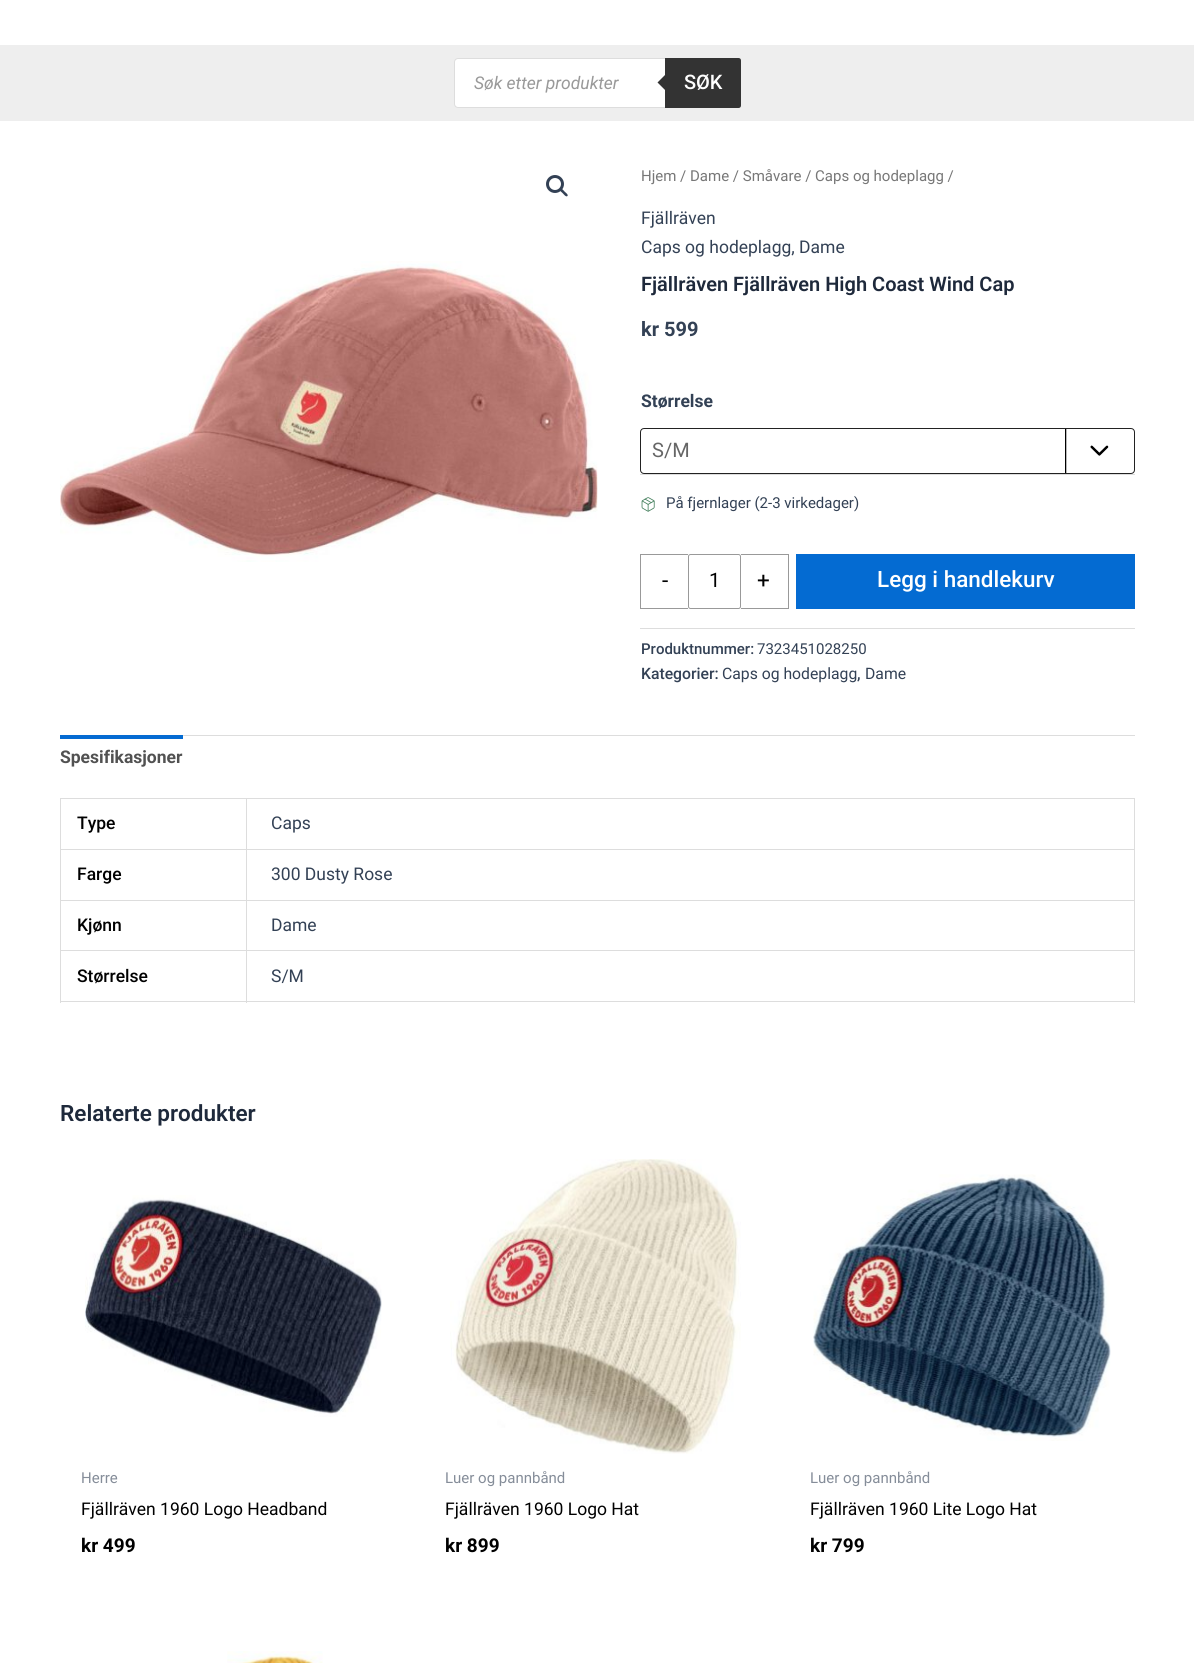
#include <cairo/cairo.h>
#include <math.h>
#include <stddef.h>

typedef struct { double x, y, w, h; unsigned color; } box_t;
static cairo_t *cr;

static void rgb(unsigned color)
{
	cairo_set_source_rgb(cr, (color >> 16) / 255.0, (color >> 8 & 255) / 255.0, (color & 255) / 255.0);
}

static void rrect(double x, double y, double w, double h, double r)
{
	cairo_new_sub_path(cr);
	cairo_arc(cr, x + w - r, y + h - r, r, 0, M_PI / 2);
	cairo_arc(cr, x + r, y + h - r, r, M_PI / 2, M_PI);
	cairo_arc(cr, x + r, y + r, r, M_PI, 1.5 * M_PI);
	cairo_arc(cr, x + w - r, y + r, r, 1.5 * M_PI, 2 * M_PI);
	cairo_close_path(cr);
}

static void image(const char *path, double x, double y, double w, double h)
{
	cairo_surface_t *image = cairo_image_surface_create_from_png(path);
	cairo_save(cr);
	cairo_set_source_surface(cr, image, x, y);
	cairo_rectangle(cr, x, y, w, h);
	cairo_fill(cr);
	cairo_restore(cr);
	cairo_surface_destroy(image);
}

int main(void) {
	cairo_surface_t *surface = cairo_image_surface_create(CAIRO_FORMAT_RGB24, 1194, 1663);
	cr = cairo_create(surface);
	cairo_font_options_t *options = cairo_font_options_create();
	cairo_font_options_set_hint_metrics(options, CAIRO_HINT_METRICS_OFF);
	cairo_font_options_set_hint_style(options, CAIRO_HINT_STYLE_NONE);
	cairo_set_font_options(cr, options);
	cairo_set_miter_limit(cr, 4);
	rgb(0xffffff);
	cairo_paint(cr);
	rgb(0xeeeeee);
	cairo_rectangle(cr, 0, 45, 1194, 76);
	cairo_fill(cr);
	rgb(0xffffff);
	rrect(454.5, 58.5, 286, 49, 3.5);
	cairo_fill_preserve(cr);
	rgb(0xdddddd);
	cairo_set_line_width(cr, 1);
	cairo_stroke(cr);
	rgb(0x333333);
	cairo_new_path(cr);
	cairo_move_to(cr, 665, 58);
	cairo_line_to(cr, 738.5, 58);
	cairo_curve_to(cr, 740, 58, 741, 59, 741, 60.5);
	cairo_line_to(cr, 741, 105.5);
	cairo_curve_to(cr, 741, 107, 740, 108, 738.5, 108);
	cairo_line_to(cr, 665, 108);
	cairo_close_path(cr);
	cairo_fill(cr);
	cairo_new_path(cr);
	cairo_move_to(cr, 667.5, 72.5);
	cairo_line_to(cr, 667.5, 92.5);
	cairo_line_to(cr, 657.5, 82.5);
	cairo_close_path(cr);
	cairo_fill(cr);
	cairo_arc(cr, 555, 184, 7.5, 0, 2 * M_PI);
	rgb(0x334155);
	cairo_set_line_width(cr, 3);
	cairo_stroke(cr);
	cairo_new_path(cr);
	cairo_move_to(cr, 560, 189);
	cairo_curve_to(cr, 561.5, 187.5, 564, 191, 564.5, 191.5);
	cairo_curve_to(cr, 565.5, 192.5, 568.5, 194.5, 567.5, 196);
	cairo_curve_to(cr, 566, 197.5, 563.5, 194, 563, 193.5);
	cairo_curve_to(cr, 562, 192.5, 559, 190.5, 560, 189);
	cairo_close_path(cr);
	cairo_fill(cr);
	image("img/1.png", 60, 261, 538, 301);
	rgb(0xdddddd);
	cairo_rectangle(cr, 640, 474, 495, 1);
	cairo_fill(cr);
	image("img/2.png", 1065, 429, 44, 44);
	rrect(640.5, 428.5, 494, 45, 3.5);
	rgb(0x222222);
	cairo_set_line_width(cr, 1);
	cairo_stroke(cr);
	image("img/3.png", 641, 497, 14, 15);
	{
		static const box_t items[] = {
			{640, 554, 48, 1, 0x999999},
			{640, 608, 48, 1, 0x999999},
			{640, 554, 1, 55, 0x999999},
		};
		for (size_t i = 0; i < sizeof items / sizeof *items; i++) {
			rgb(items[i].color);
			cairo_rectangle(cr, items[i].x, items[i].y, items[i].w, items[i].h);
			cairo_fill(cr);
		}
	}
	rrect(688.5, 554.5, 52, 54, 2);
	cairo_stroke(cr);
	{
		static const box_t items[] = {
			{741, 554, 48, 1, 0x999999},
			{788, 554, 1, 55, 0x999999},
			{741, 608, 48, 1, 0x999999},
			{796, 554, 339, 55, 0x046bd2},
			{640, 628, 495, 1, 0xdddddd},
			{183, 735, 952, 1, 0xdddddd},
			{60, 735, 123, 4, 0x046bd2},
			{60, 798, 1075, 1, 0xdddddd},
			{246, 799, 1, 204, 0xdddddd},
			{60, 849, 188, 1, 0xdddddd},
			{60, 799, 1, 51, 0xdddddd},
			{1134, 799, 1, 204, 0xdddddd},
			{248, 849, 887, 1, 0xdddddd},
			{60, 900, 1075, 1, 0xdddddd},
			{60, 850, 1, 51, 0xdddddd},
			{60, 950, 1075, 1, 0xdddddd},
			{60, 901, 1, 50, 0xdddddd},
			{60, 1001, 1075, 1, 0xdddddd},
			{60, 951, 1, 52, 0xdddddd},
		};
		for (size_t i = 0; i < sizeof items / sizeof *items; i++) {
			rgb(items[i].color);
			cairo_rectangle(cr, items[i].x, items[i].y, items[i].w, items[i].h);
			cairo_fill(cr);
		}
	}
	image("img/4.png", 85, 1195, 297, 222);
	image("img/5.png", 450, 1159, 291, 295);
	image("img/6.png", 813, 1174, 298, 267);
	image("img/7.png", 227, 1651, 96, 12);
	cairo_select_font_face(cr, "Roboto", CAIRO_FONT_SLANT_ITALIC, CAIRO_FONT_WEIGHT_NORMAL);
	cairo_set_font_size(cr, 17.5);
	rgb(0x999999);
	cairo_move_to(cr, 474, 89);
	cairo_show_text(cr, "Søk etter produkter");
	cairo_select_font_face(cr, "Roboto Medium", CAIRO_FONT_SLANT_NORMAL, CAIRO_FONT_WEIGHT_NORMAL);
	cairo_set_font_size(cr, 20);
	rgb(0xffffff);
	cairo_move_to(cr, 684, 89);
	cairo_show_text(cr, "SØK");
	cairo_select_font_face(cr, "Roboto", CAIRO_FONT_SLANT_NORMAL, CAIRO_FONT_WEIGHT_NORMAL);
	cairo_set_font_size(cr, 15);
	rgb(0x777777);
	cairo_move_to(cr, 641, 181);
	cairo_show_text(cr, "Hjem / Dame / Småvare / Caps og hodeplagg /");
	cairo_set_font_size(cr, 17.5);
	rgb(0x334155);
	cairo_move_to(cr, 641, 224);
	cairo_show_text(cr, "Fjällräven");
	cairo_move_to(cr, 641, 253);
	cairo_show_text(cr, "Caps og hodeplagg, Dame");
	cairo_select_font_face(cr, "Roboto SemiBold", CAIRO_FONT_SLANT_NORMAL, CAIRO_FONT_WEIGHT_NORMAL);
	cairo_set_font_size(cr, 20);
	rgb(0x1e293b);
	cairo_move_to(cr, 641, 291);
	cairo_show_text(cr, "Fjällräven Fjällräven High Coast Wind Cap");
	cairo_select_font_face(cr, "Roboto", CAIRO_FONT_SLANT_NORMAL, CAIRO_FONT_WEIGHT_BOLD);
	rgb(0x334155);
	cairo_move_to(cr, 641, 336);
	cairo_show_text(cr, "kr 599");
	cairo_set_font_size(cr, 17.5);
	cairo_move_to(cr, 641, 407);
	cairo_show_text(cr, "Størrelse");
	cairo_select_font_face(cr, "Roboto", CAIRO_FONT_SLANT_NORMAL, CAIRO_FONT_WEIGHT_NORMAL);
	cairo_set_font_size(cr, 20);
	rgb(0x666666);
	cairo_move_to(cr, 652, 457);
	cairo_show_text(cr, "S/M");
	cairo_set_font_size(cr, 15);
	rgb(0x334155);
	cairo_move_to(cr, 666, 508);
	cairo_show_text(cr, "På fjernlager (2-3 virkedager)");
	cairo_set_font_size(cr, 22.5);
	rgb(0x000000);
	cairo_move_to(cr, 662, 588);
	cairo_show_text(cr, "-");
	cairo_set_font_size(cr, 20);
	cairo_move_to(cr, 709, 587);
	cairo_show_text(cr, "1");
	cairo_set_font_size(cr, 22.5);
	cairo_move_to(cr, 757, 588);
	cairo_show_text(cr, "+");
	cairo_select_font_face(cr, "Roboto Medium", CAIRO_FONT_SLANT_NORMAL, CAIRO_FONT_WEIGHT_NORMAL);
	rgb(0xffffff);
	cairo_move_to(cr, 877, 587);
	cairo_show_text(cr, "Legg i handlekurv");
	cairo_set_font_size(cr, 15);
	rgb(0x334155);
	cairo_move_to(cr, 641, 654);
	cairo_show_text(cr, "Produktnummer:");
	cairo_select_font_face(cr, "Roboto", CAIRO_FONT_SLANT_NORMAL, CAIRO_FONT_WEIGHT_NORMAL);
	cairo_move_to(cr, 757, 654);
	cairo_show_text(cr, "7323451028250");
	cairo_select_font_face(cr, "Roboto Medium", CAIRO_FONT_SLANT_NORMAL, CAIRO_FONT_WEIGHT_NORMAL);
	cairo_set_font_size(cr, 15.75);
	cairo_move_to(cr, 641, 679);
	cairo_show_text(cr, "Kategorier:");
	cairo_select_font_face(cr, "Roboto", CAIRO_FONT_SLANT_NORMAL, CAIRO_FONT_WEIGHT_NORMAL);
	cairo_move_to(cr, 722, 679);
	cairo_show_text(cr, "Caps og hodeplagg");
	cairo_select_font_face(cr, "Roboto Medium", CAIRO_FONT_SLANT_NORMAL, CAIRO_FONT_WEIGHT_NORMAL);
	cairo_move_to(cr, 857, 679);
	cairo_show_text(cr, ",");
	cairo_select_font_face(cr, "Roboto", CAIRO_FONT_SLANT_NORMAL, CAIRO_FONT_WEIGHT_NORMAL);
	cairo_move_to(cr, 865, 679);
	cairo_show_text(cr, "Dame");
	cairo_select_font_face(cr, "Roboto", CAIRO_FONT_SLANT_NORMAL, CAIRO_FONT_WEIGHT_BOLD);
	cairo_set_font_size(cr, 17.5);
	rgb(0x515151);
	cairo_move_to(cr, 60, 763);
	cairo_show_text(cr, "Spesifikasjoner");
	cairo_select_font_face(cr, "Roboto Medium", CAIRO_FONT_SLANT_NORMAL, CAIRO_FONT_WEIGHT_NORMAL);
	rgb(0x000000);
	cairo_move_to(cr, 77, 829);
	cairo_show_text(cr, "Type");
	cairo_select_font_face(cr, "Roboto", CAIRO_FONT_SLANT_NORMAL, CAIRO_FONT_WEIGHT_NORMAL);
	rgb(0x334155);
	cairo_move_to(cr, 271, 829);
	cairo_show_text(cr, "Caps");
	cairo_select_font_face(cr, "Roboto Medium", CAIRO_FONT_SLANT_NORMAL, CAIRO_FONT_WEIGHT_NORMAL);
	rgb(0x000000);
	cairo_move_to(cr, 77, 880);
	cairo_show_text(cr, "Farge");
	cairo_select_font_face(cr, "Roboto", CAIRO_FONT_SLANT_NORMAL, CAIRO_FONT_WEIGHT_NORMAL);
	rgb(0x334155);
	cairo_move_to(cr, 271, 880);
	cairo_show_text(cr, "300 Dusty Rose");
	cairo_select_font_face(cr, "Roboto Medium", CAIRO_FONT_SLANT_NORMAL, CAIRO_FONT_WEIGHT_NORMAL);
	rgb(0x000000);
	cairo_move_to(cr, 77, 931);
	cairo_show_text(cr, "Kjønn");
	cairo_select_font_face(cr, "Roboto", CAIRO_FONT_SLANT_NORMAL, CAIRO_FONT_WEIGHT_NORMAL);
	rgb(0x334155);
	cairo_move_to(cr, 271, 931);
	cairo_show_text(cr, "Dame");
	cairo_select_font_face(cr, "Roboto Medium", CAIRO_FONT_SLANT_NORMAL, CAIRO_FONT_WEIGHT_NORMAL);
	rgb(0x000000);
	cairo_move_to(cr, 77, 982);
	cairo_show_text(cr, "Størrelse");
	cairo_select_font_face(cr, "Roboto", CAIRO_FONT_SLANT_NORMAL, CAIRO_FONT_WEIGHT_NORMAL);
	rgb(0x334155);
	cairo_move_to(cr, 271, 982);
	cairo_show_text(cr, "S/M");
	cairo_select_font_face(cr, "Roboto SemiBold", CAIRO_FONT_SLANT_NORMAL, CAIRO_FONT_WEIGHT_NORMAL);
	cairo_set_font_size(cr, 22.5);
	rgb(0x1e293b);
	cairo_move_to(cr, 60, 1121);
	cairo_show_text(cr, "Relaterte produkter");
	cairo_select_font_face(cr, "Roboto", CAIRO_FONT_SLANT_NORMAL, CAIRO_FONT_WEIGHT_NORMAL);
	cairo_set_font_size(cr, 15);
	rgb(0x858d99);
	cairo_move_to(cr, 81, 1483);
	cairo_show_text(cr, "Herre");
	cairo_set_font_size(cr, 17.5);
	rgb(0x000000);
	cairo_move_to(cr, 81, 1515);
	cairo_show_text(cr, "Fjällräven 1960 Logo Headband");
	cairo_select_font_face(cr, "Roboto", CAIRO_FONT_SLANT_NORMAL, CAIRO_FONT_WEIGHT_BOLD);
	cairo_set_font_size(cr, 19);
	cairo_move_to(cr, 81, 1552);
	cairo_show_text(cr, "kr 499");
	cairo_select_font_face(cr, "Roboto", CAIRO_FONT_SLANT_NORMAL, CAIRO_FONT_WEIGHT_NORMAL);
	cairo_set_font_size(cr, 15);
	rgb(0x858d99);
	cairo_move_to(cr, 445, 1483);
	cairo_show_text(cr, "Luer og pannbånd");
	cairo_set_font_size(cr, 17.5);
	rgb(0x000000);
	cairo_move_to(cr, 445, 1515);
	cairo_show_text(cr, "Fjällräven 1960 Logo Hat");
	cairo_select_font_face(cr, "Roboto", CAIRO_FONT_SLANT_NORMAL, CAIRO_FONT_WEIGHT_BOLD);
	cairo_set_font_size(cr, 19);
	cairo_move_to(cr, 445, 1552);
	cairo_show_text(cr, "kr 899");
	cairo_select_font_face(cr, "Roboto", CAIRO_FONT_SLANT_NORMAL, CAIRO_FONT_WEIGHT_NORMAL);
	cairo_set_font_size(cr, 15);
	rgb(0x858d99);
	cairo_move_to(cr, 810, 1483);
	cairo_show_text(cr, "Luer og pannbånd");
	cairo_set_font_size(cr, 17.5);
	rgb(0x000000);
	cairo_move_to(cr, 810, 1515);
	cairo_show_text(cr, "Fjällräven 1960 Lite Logo Hat");
	cairo_select_font_face(cr, "Roboto", CAIRO_FONT_SLANT_NORMAL, CAIRO_FONT_WEIGHT_BOLD);
	cairo_set_font_size(cr, 19);
	cairo_move_to(cr, 810, 1552);
	cairo_show_text(cr, "kr 799");
	cairo_surface_write_to_png(surface, "page.png");
	cairo_font_options_destroy(options);
	cairo_destroy(cr);
	cairo_surface_destroy(surface);
	return 0;
}
